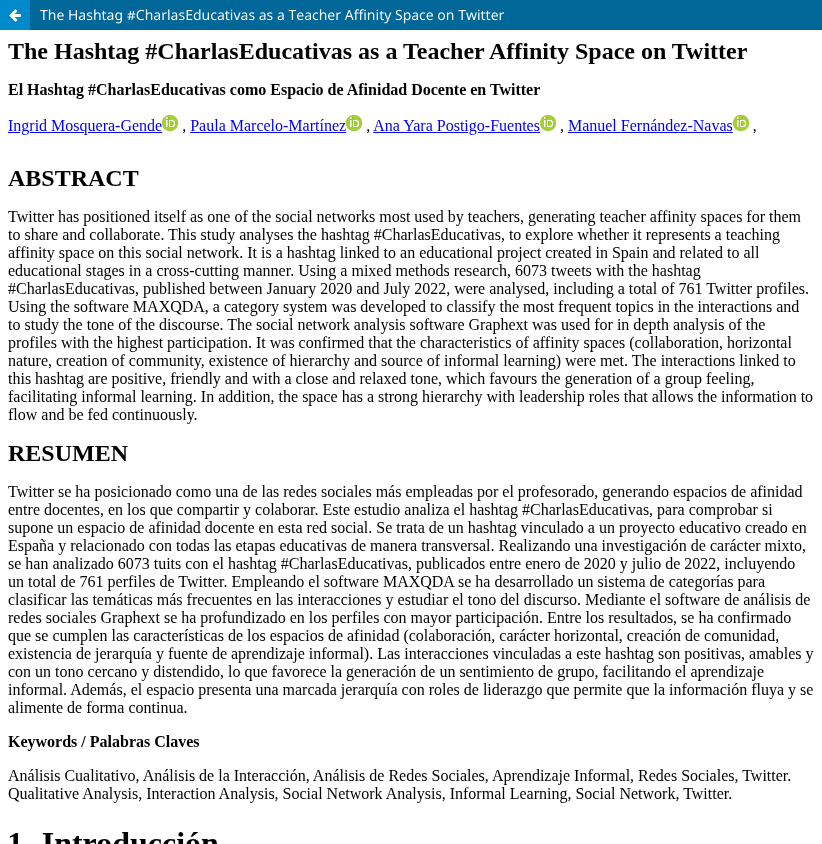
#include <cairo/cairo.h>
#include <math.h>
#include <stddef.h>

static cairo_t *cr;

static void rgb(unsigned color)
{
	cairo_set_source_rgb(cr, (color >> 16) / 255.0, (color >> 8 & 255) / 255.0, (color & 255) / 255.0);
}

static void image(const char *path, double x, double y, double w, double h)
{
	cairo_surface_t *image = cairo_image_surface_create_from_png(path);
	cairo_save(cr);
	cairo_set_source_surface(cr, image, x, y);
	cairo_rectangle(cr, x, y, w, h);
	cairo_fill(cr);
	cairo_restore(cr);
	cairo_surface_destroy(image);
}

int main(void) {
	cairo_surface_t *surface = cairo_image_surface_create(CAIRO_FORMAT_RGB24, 822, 844);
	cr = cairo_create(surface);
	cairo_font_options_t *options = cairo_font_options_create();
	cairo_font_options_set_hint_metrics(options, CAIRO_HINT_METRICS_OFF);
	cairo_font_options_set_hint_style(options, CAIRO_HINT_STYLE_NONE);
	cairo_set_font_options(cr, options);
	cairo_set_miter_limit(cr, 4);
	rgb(0xffffff);
	cairo_paint(cr);
	rgb(0x006798);
	cairo_rectangle(cr, 30, 0, 792, 30);
	cairo_fill(cr);
	rgb(0x008acb);
	cairo_rectangle(cr, 0, 0, 30, 30);
	cairo_fill(cr);
	image("img/1.png", 9, 9, 12, 13);
	image("img/2.png", 8, 43, 806, 801);
	cairo_select_font_face(cr, "Noto Sans", CAIRO_FONT_SLANT_NORMAL, CAIRO_FONT_WEIGHT_NORMAL);
	cairo_set_font_size(cr, 14);
	rgb(0xffffff);
	cairo_move_to(cr, 40, 20);
	cairo_show_text(cr, "The Hashtag #CharlasEducativas as a Teacher Affinity Space on Twitter");
	cairo_surface_write_to_png(surface, "page.png");
	cairo_font_options_destroy(options);
	cairo_destroy(cr);
	cairo_surface_destroy(surface);
	return 0;
}
